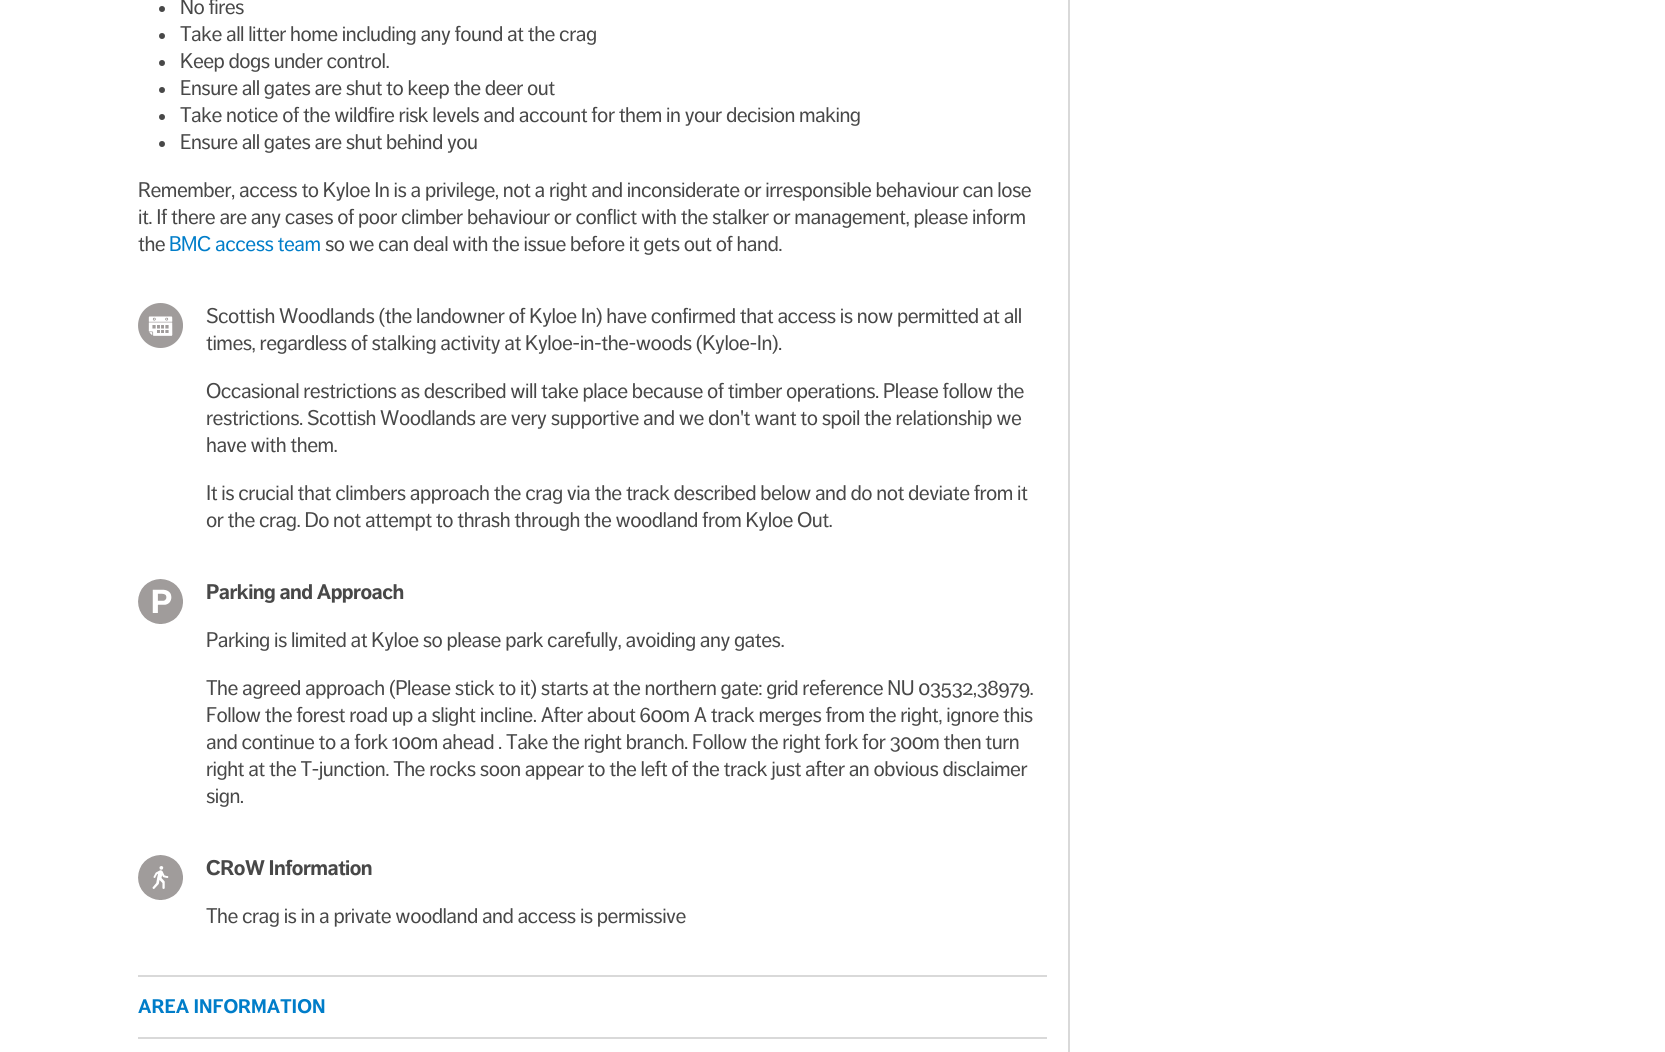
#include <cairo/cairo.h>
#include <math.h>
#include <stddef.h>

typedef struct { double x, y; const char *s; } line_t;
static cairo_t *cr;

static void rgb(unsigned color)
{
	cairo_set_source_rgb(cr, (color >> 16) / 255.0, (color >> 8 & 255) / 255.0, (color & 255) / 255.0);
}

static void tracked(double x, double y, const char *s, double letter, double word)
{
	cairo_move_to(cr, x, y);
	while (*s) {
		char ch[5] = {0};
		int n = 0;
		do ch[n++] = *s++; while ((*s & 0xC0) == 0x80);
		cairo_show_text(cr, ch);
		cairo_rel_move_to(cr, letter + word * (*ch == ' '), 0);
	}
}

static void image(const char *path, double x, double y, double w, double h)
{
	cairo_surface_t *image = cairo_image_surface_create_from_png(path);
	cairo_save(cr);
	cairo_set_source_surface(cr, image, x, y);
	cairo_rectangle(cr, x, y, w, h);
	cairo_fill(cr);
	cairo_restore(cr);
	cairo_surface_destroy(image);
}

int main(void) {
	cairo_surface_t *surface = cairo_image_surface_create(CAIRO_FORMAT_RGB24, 1665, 1052);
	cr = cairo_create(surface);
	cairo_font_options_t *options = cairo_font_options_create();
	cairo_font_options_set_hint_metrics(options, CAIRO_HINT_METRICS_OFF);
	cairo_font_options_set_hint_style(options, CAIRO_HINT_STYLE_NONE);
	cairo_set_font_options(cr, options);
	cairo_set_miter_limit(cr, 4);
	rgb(0xffffff);
	cairo_paint(cr);
	rgb(0xd9d9d9);
	cairo_rectangle(cr, 1068, 0, 2, 1052);
	cairo_fill(cr);
	cairo_rectangle(cr, 138, 975, 909, 2);
	cairo_fill(cr);
	rgb(0x484848);
	cairo_arc(cr, 162, 9, 3, 0, 2 * M_PI);
	cairo_fill(cr);
	cairo_arc(cr, 162, 36, 3, 0, 2 * M_PI);
	cairo_fill(cr);
	cairo_arc(cr, 162, 63, 3, 0, 2 * M_PI);
	cairo_fill(cr);
	cairo_arc(cr, 162, 90, 3, 0, 2 * M_PI);
	cairo_fill(cr);
	cairo_arc(cr, 162, 117, 3, 0, 2 * M_PI);
	cairo_fill(cr);
	cairo_arc(cr, 162, 144, 3, 0, 2 * M_PI);
	cairo_fill(cr);
	image("img/1.png", 138, 303, 45, 45);
	image("img/2.png", 138, 579, 45, 45);
	image("img/3.png", 138, 855, 45, 45);
	rgb(0xd9d9d9);
	cairo_rectangle(cr, 138, 1037, 909, 2);
	cairo_fill(cr);
	cairo_select_font_face(cr, "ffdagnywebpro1", CAIRO_FONT_SLANT_NORMAL, CAIRO_FONT_WEIGHT_NORMAL);
	cairo_set_font_size(cr, 21);
	rgb(0x484848);
	{
		static const line_t items[] = {
			{180, 14, "No fires"},
			{180, 41, "Take all litter home including any found at the crag"},
			{180, 68, "Keep dogs under control."},
			{180, 95, "Ensure all gates are shut to keep the deer out"},
			{180, 122, "Take notice of the wildfire risk levels and account for them in your decision making"},
			{180, 149, "Ensure all gates are shut behind you"},
			{138, 197, "Remember, access to Kyloe In is a privilege, not a right and inconsiderate or irresponsible behaviour can lose"},
			{138, 224, "it. If there are any cases of poor climber behaviour or conflict with the stalker or management, please inform"},
			{138, 251, "the"},
		};
		for (size_t i = 0; i < sizeof items / sizeof *items; i++) {
			tracked(items[i].x, items[i].y, items[i].s, -0.52, 0);
		}
	}
	rgb(0x007dc9);
	tracked(169, 251, "BMC access team", -0.52, 0);
	rgb(0x484848);
	{
		static const line_t items[] = {
			{325, 251, "so we can deal with the issue before it gets out of hand."},
			{206, 323, "Scottish Woodlands (the landowner of Kyloe In) have confirmed that access is now permitted at all"},
			{206, 350, "times, regardless of stalking activity at Kyloe-in-the-woods (Kyloe-In)."},
			{206, 398, "Occasional restrictions as described will take place because of timber operations. Please follow the"},
			{206, 425, "restrictions. Scottish Woodlands are very supportive and we don't want to spoil the relationship we"},
			{206, 452, "have with them."},
			{206, 500, "It is crucial that climbers approach the crag via the track described below and do not deviate from it"},
			{206, 527, "or the crag. Do not attempt to thrash through the woodland from Kyloe Out."},
		};
		for (size_t i = 0; i < sizeof items / sizeof *items; i++) {
			tracked(items[i].x, items[i].y, items[i].s, -0.52, 0);
		}
	}
	cairo_select_font_face(cr, "ffdagnywebpro1", CAIRO_FONT_SLANT_NORMAL, CAIRO_FONT_WEIGHT_BOLD);
	tracked(206, 599, "Parking and Approach", -0.52, 0);
	cairo_select_font_face(cr, "ffdagnywebpro1", CAIRO_FONT_SLANT_NORMAL, CAIRO_FONT_WEIGHT_NORMAL);
	{
		static const line_t items[] = {
			{206, 647, "Parking is limited at Kyloe so please park carefully, avoiding any gates."},
			{206, 695, "The agreed approach (Please stick to it) starts at the northern gate: grid reference NU 03532,38979."},
			{206, 722, "Follow the forest road up a slight incline. After about 600m A track merges from the right, ignore this"},
			{206, 749, "and continue to a fork 100m ahead . Take the right branch. Follow the right fork for 300m then turn"},
			{206, 776, "right at the T-junction. The rocks soon appear to the left of the track just after an obvious disclaimer"},
			{206, 803, "sign."},
		};
		for (size_t i = 0; i < sizeof items / sizeof *items; i++) {
			tracked(items[i].x, items[i].y, items[i].s, -0.52, 0);
		}
	}
	cairo_select_font_face(cr, "ffdagnywebpro1", CAIRO_FONT_SLANT_NORMAL, CAIRO_FONT_WEIGHT_BOLD);
	tracked(206, 875, "CRoW Information", -0.52, 0);
	cairo_select_font_face(cr, "ffdagnywebpro1", CAIRO_FONT_SLANT_NORMAL, CAIRO_FONT_WEIGHT_NORMAL);
	tracked(206, 923, "The crag is in a private woodland and access is permissive", -0.52, 0);
	cairo_select_font_face(cr, "ffdagnywebpro1", CAIRO_FONT_SLANT_NORMAL, CAIRO_FONT_WEIGHT_BOLD);
	cairo_set_font_size(cr, 19.5);
	rgb(0x007dc9);
	cairo_move_to(cr, 138, 1013);
	cairo_show_text(cr, "AREA INFORMATION");
	cairo_surface_write_to_png(surface, "page.png");
	cairo_font_options_destroy(options);
	cairo_destroy(cr);
	cairo_surface_destroy(surface);
	return 0;
}
